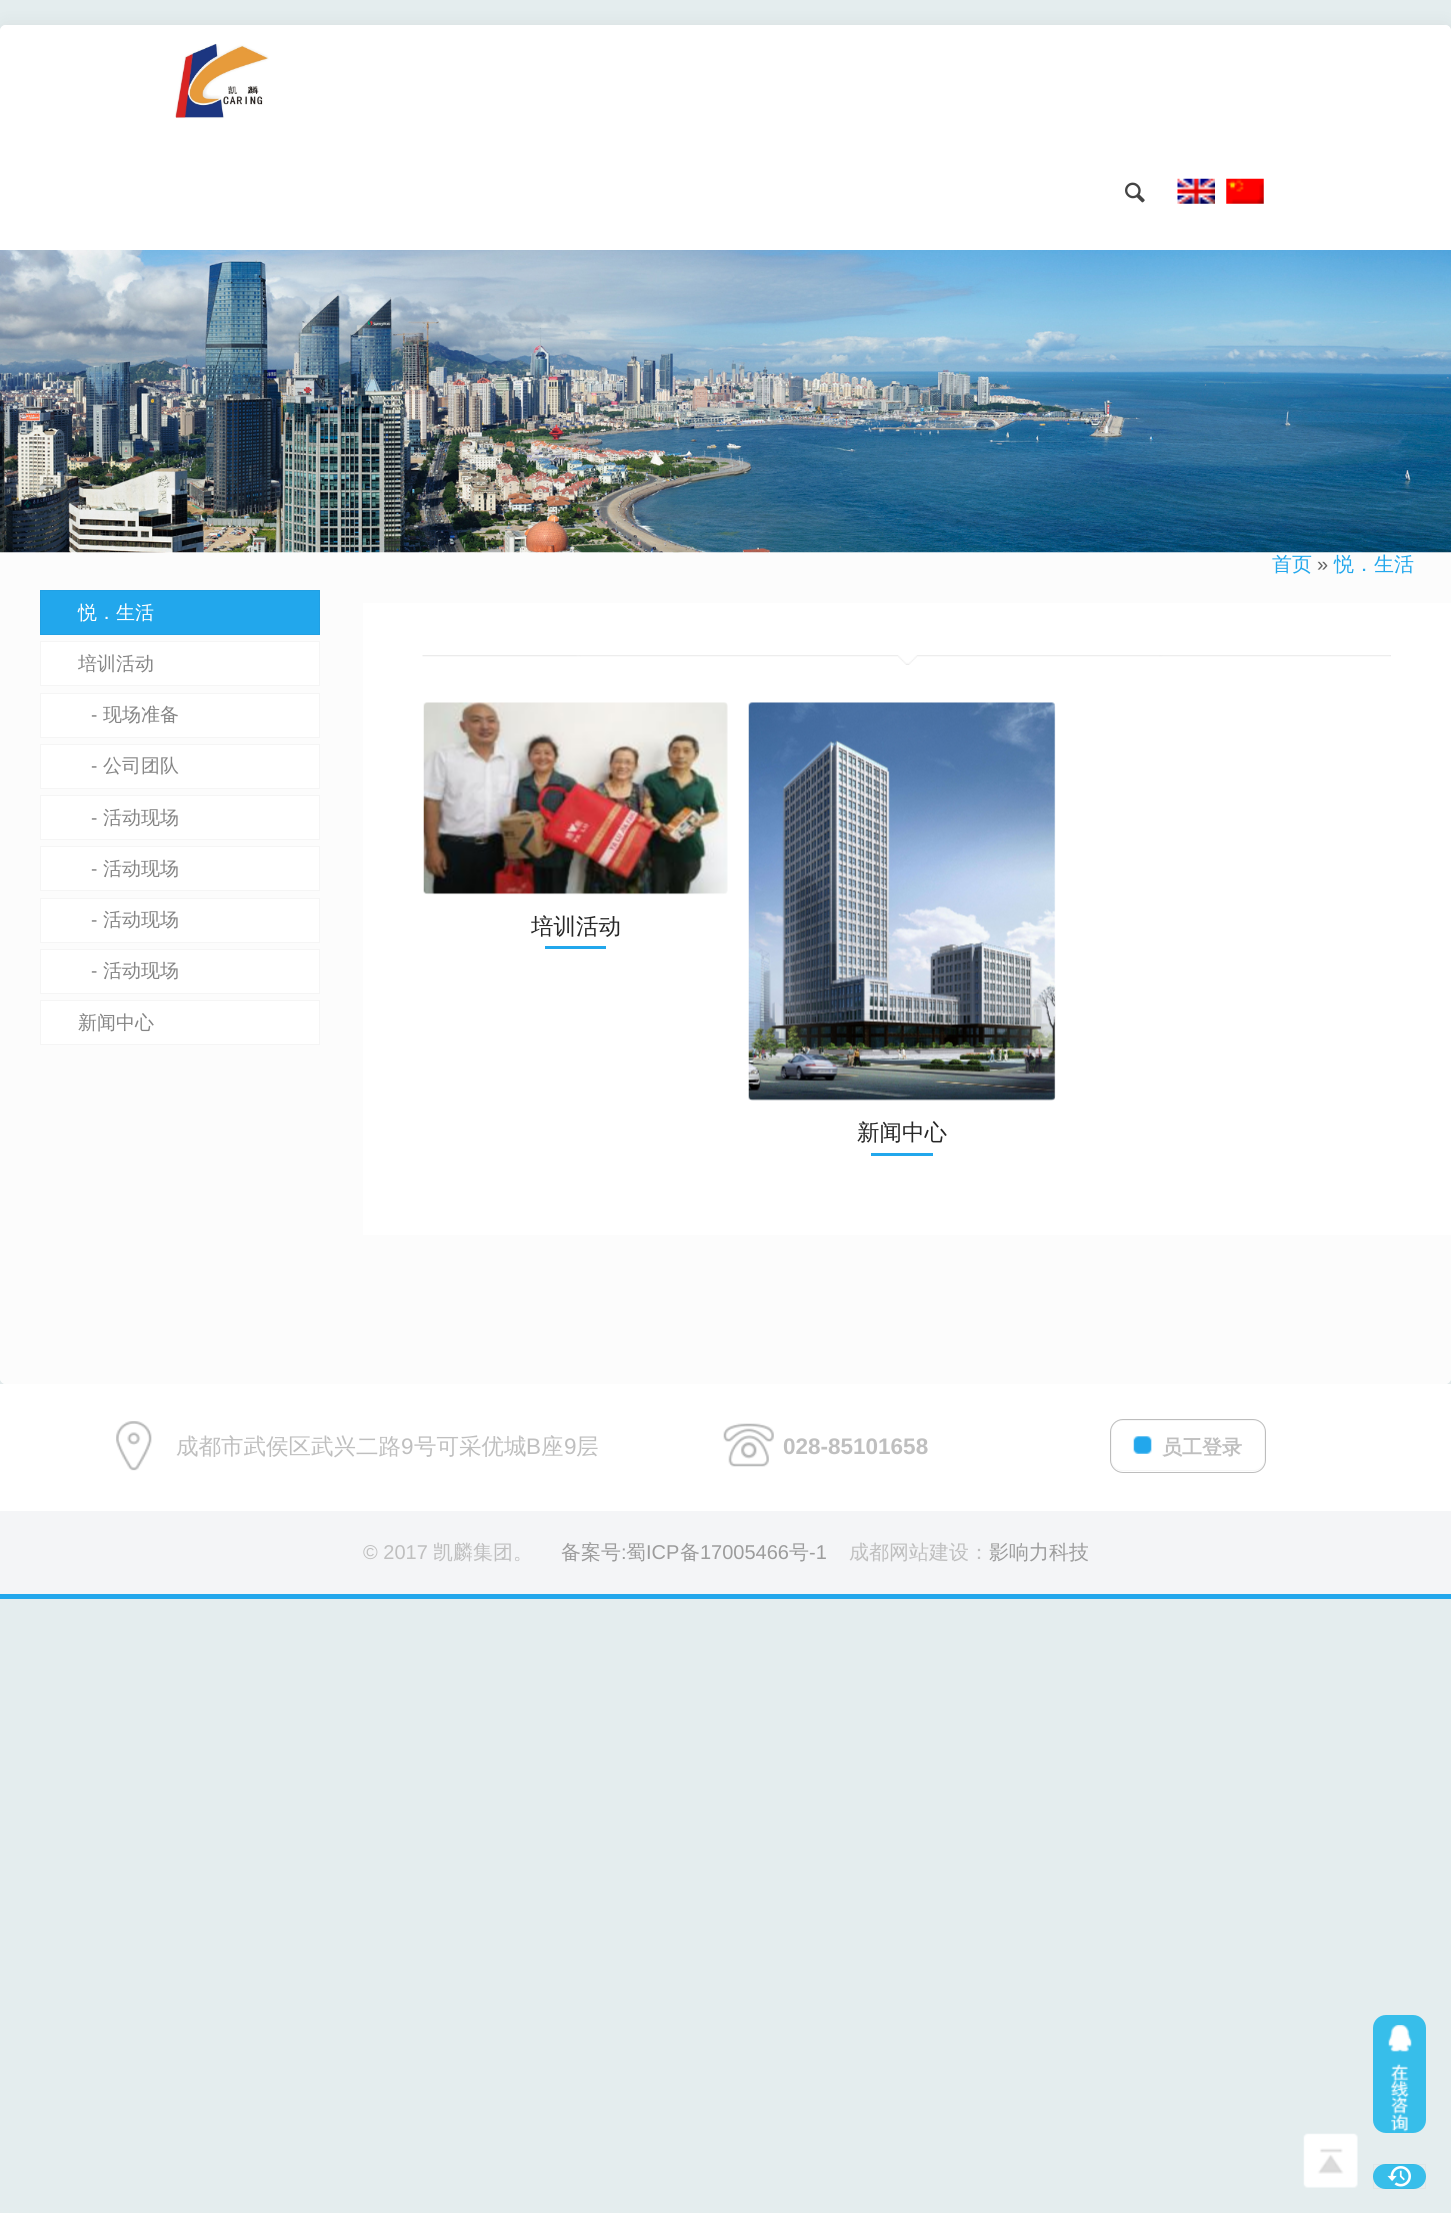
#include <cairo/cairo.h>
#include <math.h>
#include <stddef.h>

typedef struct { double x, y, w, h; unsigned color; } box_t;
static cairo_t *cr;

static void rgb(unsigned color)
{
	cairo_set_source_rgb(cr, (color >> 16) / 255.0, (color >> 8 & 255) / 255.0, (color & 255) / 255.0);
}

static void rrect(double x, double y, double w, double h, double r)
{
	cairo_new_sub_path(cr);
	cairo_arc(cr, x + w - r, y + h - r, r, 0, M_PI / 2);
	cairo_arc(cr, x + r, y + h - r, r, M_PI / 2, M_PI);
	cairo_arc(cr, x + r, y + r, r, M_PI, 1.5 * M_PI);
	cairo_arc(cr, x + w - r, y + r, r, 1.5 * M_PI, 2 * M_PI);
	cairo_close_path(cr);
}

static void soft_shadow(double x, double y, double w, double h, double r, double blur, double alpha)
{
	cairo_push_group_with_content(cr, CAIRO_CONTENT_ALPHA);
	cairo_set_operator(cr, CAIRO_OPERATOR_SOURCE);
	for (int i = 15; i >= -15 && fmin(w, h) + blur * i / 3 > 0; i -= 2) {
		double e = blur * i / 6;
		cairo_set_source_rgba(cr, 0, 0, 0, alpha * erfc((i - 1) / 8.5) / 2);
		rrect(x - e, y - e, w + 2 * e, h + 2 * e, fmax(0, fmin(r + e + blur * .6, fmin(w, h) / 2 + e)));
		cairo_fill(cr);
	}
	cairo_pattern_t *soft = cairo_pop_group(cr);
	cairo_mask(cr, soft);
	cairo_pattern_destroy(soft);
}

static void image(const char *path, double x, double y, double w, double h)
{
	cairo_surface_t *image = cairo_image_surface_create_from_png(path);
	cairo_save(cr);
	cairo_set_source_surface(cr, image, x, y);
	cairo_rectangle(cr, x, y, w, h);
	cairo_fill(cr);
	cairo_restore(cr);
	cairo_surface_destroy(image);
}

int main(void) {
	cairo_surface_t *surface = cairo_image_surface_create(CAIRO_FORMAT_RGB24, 1451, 2213);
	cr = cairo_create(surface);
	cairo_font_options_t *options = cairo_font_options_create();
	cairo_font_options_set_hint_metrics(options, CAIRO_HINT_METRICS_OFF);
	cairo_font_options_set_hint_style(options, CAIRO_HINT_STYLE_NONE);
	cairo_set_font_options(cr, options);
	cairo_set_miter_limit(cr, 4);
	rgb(0xe4edee);
	cairo_paint(cr);
	rgb(0x000000);
	soft_shadow(0, 25, 1451, 1359, 6, 9.5, 0.06);
	rgb(0xfcfcfc);
	rrect(0, 25, 1451, 1359, 6);
	cairo_fill(cr);
	rgb(0xffffff);
	cairo_new_path(cr);
	cairo_move_to(cr, 6, 25);
	cairo_line_to(cr, 1445, 25);
	cairo_curve_to(cr, 1448.5, 25, 1451, 27.5, 1451, 31);
	cairo_line_to(cr, 1451, 250);
	cairo_line_to(cr, 0, 250);
	cairo_line_to(cr, 0, 31);
	cairo_curve_to(cr, 0, 27.5, 2.5, 25, 6, 25);
	cairo_close_path(cr);
	cairo_fill(cr);
	image("img/1.png", 175, 43, 94, 76);
	image("img/2.png", 1125, 182, 20, 21);
	image("img/3.png", 1177, 178, 38, 26);
	image("img/4.png", 1226, 178, 38, 26);
	image("img/5.png", 0, 250, 1451, 303);
	rgb(0xfcfcfc);
	cairo_new_path(cr);
	cairo_move_to(cr, 0, 553);
	cairo_line_to(cr, 1451, 553);
	cairo_line_to(cr, 1451, 1378);
	cairo_curve_to(cr, 1451, 1381.5, 1448.5, 1384, 1445, 1384);
	cairo_line_to(cr, 6, 1384);
	cairo_curve_to(cr, 2.5, 1384, 0, 1381.5, 0, 1378);
	cairo_close_path(cr);
	cairo_fill(cr);
	rgb(0x22a7ec);
	cairo_rectangle(cr, 40.5, 590.5, 279, 44);
	cairo_fill_preserve(cr);
	rgb(0x21a0e3);
	cairo_set_line_width(cr, 1);
	cairo_stroke(cr);
	rgb(0xffffff);
	cairo_rectangle(cr, 40.5, 641.5, 279, 44);
	cairo_fill_preserve(cr);
	rgb(0xf5f5f5);
	cairo_stroke(cr);
	rgb(0xffffff);
	cairo_rectangle(cr, 40.5, 693.5, 279, 44);
	cairo_fill_preserve(cr);
	rgb(0xf5f5f5);
	cairo_stroke(cr);
	rgb(0xffffff);
	cairo_rectangle(cr, 40.5, 744.5, 279, 44);
	cairo_fill_preserve(cr);
	rgb(0xf5f5f5);
	cairo_stroke(cr);
	rgb(0xffffff);
	cairo_rectangle(cr, 40.5, 795.5, 279, 44);
	cairo_fill_preserve(cr);
	rgb(0xf5f5f5);
	cairo_stroke(cr);
	rgb(0xffffff);
	cairo_rectangle(cr, 40.5, 846.5, 279, 44);
	cairo_fill_preserve(cr);
	rgb(0xf5f5f5);
	cairo_stroke(cr);
	rgb(0xffffff);
	cairo_rectangle(cr, 40.5, 898.5, 279, 44);
	cairo_fill_preserve(cr);
	rgb(0xf5f5f5);
	cairo_stroke(cr);
	rgb(0xffffff);
	cairo_rectangle(cr, 40.5, 949.5, 279, 44);
	cairo_fill_preserve(cr);
	rgb(0xf5f5f5);
	cairo_stroke(cr);
	rgb(0xffffff);
	cairo_rectangle(cr, 40.5, 1000.5, 279, 44);
	cairo_fill_preserve(cr);
	rgb(0xf5f5f5);
	cairo_stroke(cr);
	rgb(0xffffff);
	cairo_rectangle(cr, 363, 603, 1088, 632);
	cairo_fill(cr);
	image("img/6.png", 422, 655, 969, 10);
	image("img/7.png", 423, 702, 305, 193);
	rgb(0x22a7ec);
	cairo_rectangle(cr, 545, 946, 61, 3);
	cairo_fill(cr);
	image("img/8.png", 748, 702, 308, 399);
	{
		static const box_t items[] = {
			{871, 1153, 62, 3, 0x22a7ec},
			{0, 1384, 1451, 127, 0xffffff},
			{0, 1594, 1451, 5, 0x22a7ec},
		};
		for (size_t i = 0; i < sizeof items / sizeof *items; i++) {
			rgb(items[i].color);
			cairo_rectangle(cr, items[i].x, items[i].y, items[i].w, items[i].h);
			cairo_fill(cr);
		}
	}
	image("img/9.png", 116, 1421, 36, 50);
	image("img/10.png", 723, 1423, 51, 44);
	rrect(1111.5, 1420.5, 153, 50, 10.5);
	rgb(0xf7f7f7);
	cairo_stroke(cr);
	rrect(1110.5, 1419.5, 155, 53, 12.5);
	rgb(0xbdbdbd);
	cairo_stroke(cr);
	image("img/11.png", 1133, 1436, 19, 18);
	rgb(0xf4f5f7);
	cairo_rectangle(cr, 0, 1511, 1451, 83);
	cairo_fill(cr);
	image("img/12.png", 1303, 2133, 55, 55);
	rgb(0x37beea);
	rrect(1373, 2015, 53, 118, 13);
	cairo_fill(cr);
	image("img/13.png", 1388, 2025, 24, 107);
	rrect(1373, 2164, 53, 25, 12.5);
	cairo_fill(cr);
	cairo_rectangle(cr, 1373.5, 2164.5, 52, 24);
	cairo_set_source_rgba(cr, 0, 0, 0, 0.03);
	cairo_stroke(cr);
	image("img/14.png", 1387, 2166, 24, 21);
	cairo_select_font_face(cr, "WenQuanYi Zen Hei Medium", CAIRO_FONT_SLANT_NORMAL, CAIRO_FONT_WEIGHT_NORMAL);
	cairo_set_font_size(cr, 19);
	rgb(0xffffff);
	cairo_move_to(cr, 78, 619);
	cairo_show_text(cr, "悦．生活");
	rgb(0x858585);
	cairo_move_to(cr, 78, 670);
	cairo_show_text(cr, "培训活动");
	cairo_select_font_face(cr, "Liberation Sans", CAIRO_FONT_SLANT_NORMAL, CAIRO_FONT_WEIGHT_NORMAL);
	cairo_move_to(cr, 91, 721);
	cairo_show_text(cr, "-");
	cairo_select_font_face(cr, "WenQuanYi Zen Hei Medium", CAIRO_FONT_SLANT_NORMAL, CAIRO_FONT_WEIGHT_NORMAL);
	cairo_move_to(cr, 103, 721);
	cairo_show_text(cr, "现场准备");
	cairo_select_font_face(cr, "Liberation Sans", CAIRO_FONT_SLANT_NORMAL, CAIRO_FONT_WEIGHT_NORMAL);
	cairo_move_to(cr, 91, 772);
	cairo_show_text(cr, "-");
	cairo_select_font_face(cr, "WenQuanYi Zen Hei Medium", CAIRO_FONT_SLANT_NORMAL, CAIRO_FONT_WEIGHT_NORMAL);
	cairo_move_to(cr, 103, 772);
	cairo_show_text(cr, "公司团队");
	cairo_select_font_face(cr, "Liberation Sans", CAIRO_FONT_SLANT_NORMAL, CAIRO_FONT_WEIGHT_NORMAL);
	cairo_move_to(cr, 91, 824);
	cairo_show_text(cr, "-");
	cairo_select_font_face(cr, "WenQuanYi Zen Hei Medium", CAIRO_FONT_SLANT_NORMAL, CAIRO_FONT_WEIGHT_NORMAL);
	cairo_move_to(cr, 103, 824);
	cairo_show_text(cr, "活动现场");
	cairo_select_font_face(cr, "Liberation Sans", CAIRO_FONT_SLANT_NORMAL, CAIRO_FONT_WEIGHT_NORMAL);
	cairo_move_to(cr, 91, 875);
	cairo_show_text(cr, "-");
	cairo_select_font_face(cr, "WenQuanYi Zen Hei Medium", CAIRO_FONT_SLANT_NORMAL, CAIRO_FONT_WEIGHT_NORMAL);
	cairo_move_to(cr, 103, 875);
	cairo_show_text(cr, "活动现场");
	cairo_select_font_face(cr, "Liberation Sans", CAIRO_FONT_SLANT_NORMAL, CAIRO_FONT_WEIGHT_NORMAL);
	cairo_move_to(cr, 91, 926);
	cairo_show_text(cr, "-");
	cairo_select_font_face(cr, "WenQuanYi Zen Hei Medium", CAIRO_FONT_SLANT_NORMAL, CAIRO_FONT_WEIGHT_NORMAL);
	cairo_move_to(cr, 103, 926);
	cairo_show_text(cr, "活动现场");
	cairo_select_font_face(cr, "Liberation Sans", CAIRO_FONT_SLANT_NORMAL, CAIRO_FONT_WEIGHT_NORMAL);
	cairo_move_to(cr, 91, 977);
	cairo_show_text(cr, "-");
	cairo_select_font_face(cr, "WenQuanYi Zen Hei Medium", CAIRO_FONT_SLANT_NORMAL, CAIRO_FONT_WEIGHT_NORMAL);
	cairo_move_to(cr, 103, 977);
	cairo_show_text(cr, "活动现场");
	cairo_move_to(cr, 78, 1029);
	cairo_show_text(cr, "新闻中心");
	cairo_set_font_size(cr, 20);
	rgb(0x22a7ec);
	cairo_move_to(cr, 1272, 571);
	cairo_show_text(cr, "首页");
	cairo_select_font_face(cr, "Liberation Sans", CAIRO_FONT_SLANT_NORMAL, CAIRO_FONT_WEIGHT_NORMAL);
	rgb(0x636363);
	cairo_move_to(cr, 1317, 571);
	cairo_show_text(cr, "»");
	cairo_select_font_face(cr, "WenQuanYi Zen Hei Medium", CAIRO_FONT_SLANT_NORMAL, CAIRO_FONT_WEIGHT_NORMAL);
	rgb(0x22a7ec);
	cairo_move_to(cr, 1334, 571);
	cairo_show_text(cr, "悦．生活");
	cairo_set_font_size(cr, 22.5);
	rgb(0x272727);
	cairo_move_to(cr, 531, 934);
	cairo_show_text(cr, "培训活动");
	cairo_move_to(cr, 857, 1140);
	cairo_show_text(cr, "新闻中心");
	rgb(0xbfbfbf);
	cairo_move_to(cr, 176, 1454);
	cairo_show_text(cr, "成都市武侯区武兴二路");
	cairo_select_font_face(cr, "Liberation Sans", CAIRO_FONT_SLANT_NORMAL, CAIRO_FONT_WEIGHT_NORMAL);
	cairo_move_to(cr, 401, 1454);
	cairo_show_text(cr, "9");
	cairo_select_font_face(cr, "WenQuanYi Zen Hei Medium", CAIRO_FONT_SLANT_NORMAL, CAIRO_FONT_WEIGHT_NORMAL);
	cairo_move_to(cr, 414, 1454);
	cairo_show_text(cr, "号可采优城");
	cairo_select_font_face(cr, "Liberation Sans", CAIRO_FONT_SLANT_NORMAL, CAIRO_FONT_WEIGHT_NORMAL);
	cairo_move_to(cr, 526, 1454);
	cairo_show_text(cr, "B");
	cairo_select_font_face(cr, "WenQuanYi Zen Hei Medium", CAIRO_FONT_SLANT_NORMAL, CAIRO_FONT_WEIGHT_NORMAL);
	cairo_move_to(cr, 541, 1454);
	cairo_show_text(cr, "座");
	cairo_select_font_face(cr, "Liberation Sans", CAIRO_FONT_SLANT_NORMAL, CAIRO_FONT_WEIGHT_NORMAL);
	cairo_move_to(cr, 564, 1454);
	cairo_show_text(cr, "9");
	cairo_select_font_face(cr, "WenQuanYi Zen Hei Medium", CAIRO_FONT_SLANT_NORMAL, CAIRO_FONT_WEIGHT_NORMAL);
	cairo_move_to(cr, 576, 1454);
	cairo_show_text(cr, "层");
	cairo_select_font_face(cr, "Liberation Sans", CAIRO_FONT_SLANT_NORMAL, CAIRO_FONT_WEIGHT_BOLD);
	cairo_move_to(cr, 783, 1454);
	cairo_show_text(cr, "028-85101658");
	cairo_select_font_face(cr, "WenQuanYi Zen Hei", CAIRO_FONT_SLANT_NORMAL, CAIRO_FONT_WEIGHT_BOLD);
	cairo_set_font_size(cr, 20);
	cairo_move_to(cr, 1162, 1454);
	cairo_show_text(cr, "员工登录");
	cairo_select_font_face(cr, "Liberation Sans", CAIRO_FONT_SLANT_NORMAL, CAIRO_FONT_WEIGHT_NORMAL);
	cairo_move_to(cr, 363, 1559);
	cairo_show_text(cr, "© 2017");
	cairo_select_font_face(cr, "WenQuanYi Zen Hei Medium", CAIRO_FONT_SLANT_NORMAL, CAIRO_FONT_WEIGHT_NORMAL);
	cairo_move_to(cr, 433, 1559);
	cairo_show_text(cr, "凯麟集团。");
	rgb(0x9c9c9c);
	cairo_move_to(cr, 561, 1559);
	cairo_show_text(cr, "备案号");
	cairo_select_font_face(cr, "Liberation Sans", CAIRO_FONT_SLANT_NORMAL, CAIRO_FONT_WEIGHT_NORMAL);
	cairo_move_to(cr, 621, 1559);
	cairo_show_text(cr, ":");
	cairo_select_font_face(cr, "WenQuanYi Zen Hei Medium", CAIRO_FONT_SLANT_NORMAL, CAIRO_FONT_WEIGHT_NORMAL);
	cairo_move_to(cr, 626, 1559);
	cairo_show_text(cr, "蜀");
	cairo_select_font_face(cr, "Liberation Sans", CAIRO_FONT_SLANT_NORMAL, CAIRO_FONT_WEIGHT_NORMAL);
	cairo_move_to(cr, 646, 1559);
	cairo_show_text(cr, "ICP");
	cairo_select_font_face(cr, "WenQuanYi Zen Hei Medium", CAIRO_FONT_SLANT_NORMAL, CAIRO_FONT_WEIGHT_NORMAL);
	cairo_move_to(cr, 680, 1559);
	cairo_show_text(cr, "备");
	cairo_select_font_face(cr, "Liberation Sans", CAIRO_FONT_SLANT_NORMAL, CAIRO_FONT_WEIGHT_NORMAL);
	cairo_move_to(cr, 700, 1559);
	cairo_show_text(cr, "17005466");
	cairo_select_font_face(cr, "WenQuanYi Zen Hei Medium", CAIRO_FONT_SLANT_NORMAL, CAIRO_FONT_WEIGHT_NORMAL);
	cairo_move_to(cr, 789, 1559);
	cairo_show_text(cr, "号");
	cairo_select_font_face(cr, "Liberation Sans", CAIRO_FONT_SLANT_NORMAL, CAIRO_FONT_WEIGHT_NORMAL);
	cairo_move_to(cr, 809, 1559);
	cairo_show_text(cr, "-1");
	cairo_select_font_face(cr, "WenQuanYi Zen Hei Medium", CAIRO_FONT_SLANT_NORMAL, CAIRO_FONT_WEIGHT_NORMAL);
	rgb(0xbfbfbf);
	cairo_move_to(cr, 849, 1559);
	cairo_show_text(cr, "成都网站建设：");
	rgb(0x9c9c9c);
	cairo_move_to(cr, 989, 1559);
	cairo_show_text(cr, "影响力科技");
	cairo_surface_write_to_png(surface, "page.png");
	cairo_font_options_destroy(options);
	cairo_destroy(cr);
	cairo_surface_destroy(surface);
	return 0;
}
